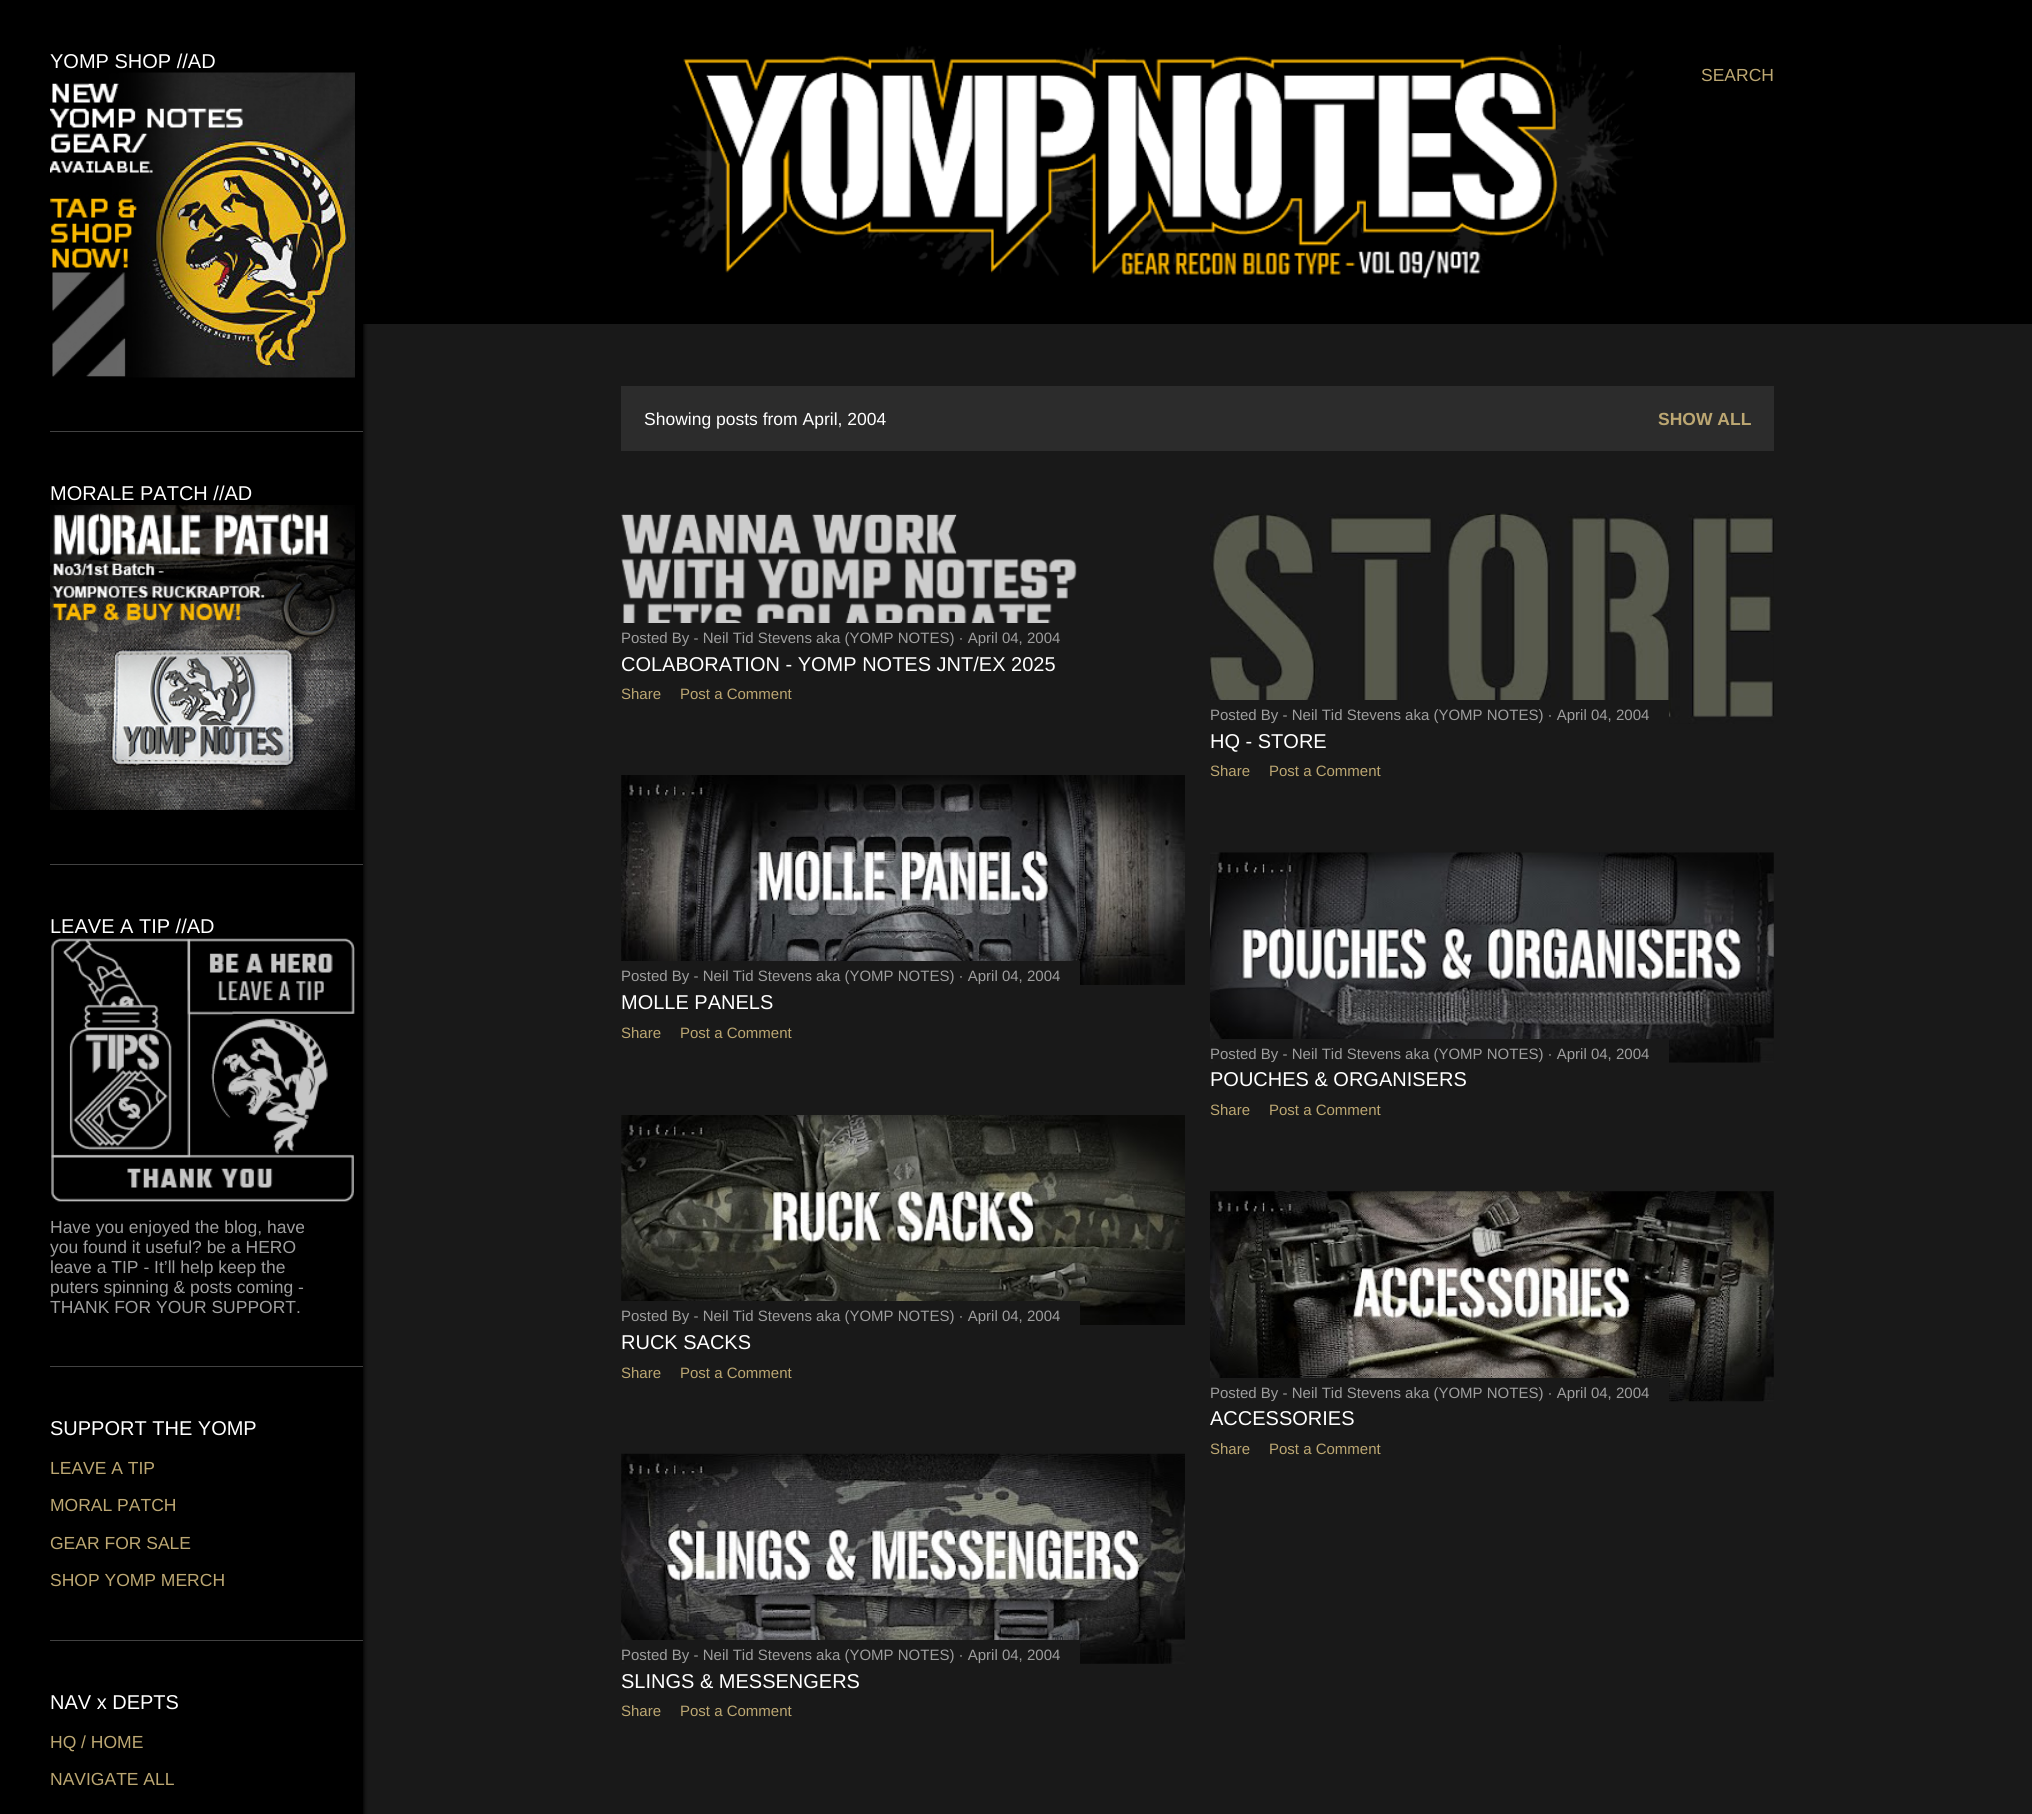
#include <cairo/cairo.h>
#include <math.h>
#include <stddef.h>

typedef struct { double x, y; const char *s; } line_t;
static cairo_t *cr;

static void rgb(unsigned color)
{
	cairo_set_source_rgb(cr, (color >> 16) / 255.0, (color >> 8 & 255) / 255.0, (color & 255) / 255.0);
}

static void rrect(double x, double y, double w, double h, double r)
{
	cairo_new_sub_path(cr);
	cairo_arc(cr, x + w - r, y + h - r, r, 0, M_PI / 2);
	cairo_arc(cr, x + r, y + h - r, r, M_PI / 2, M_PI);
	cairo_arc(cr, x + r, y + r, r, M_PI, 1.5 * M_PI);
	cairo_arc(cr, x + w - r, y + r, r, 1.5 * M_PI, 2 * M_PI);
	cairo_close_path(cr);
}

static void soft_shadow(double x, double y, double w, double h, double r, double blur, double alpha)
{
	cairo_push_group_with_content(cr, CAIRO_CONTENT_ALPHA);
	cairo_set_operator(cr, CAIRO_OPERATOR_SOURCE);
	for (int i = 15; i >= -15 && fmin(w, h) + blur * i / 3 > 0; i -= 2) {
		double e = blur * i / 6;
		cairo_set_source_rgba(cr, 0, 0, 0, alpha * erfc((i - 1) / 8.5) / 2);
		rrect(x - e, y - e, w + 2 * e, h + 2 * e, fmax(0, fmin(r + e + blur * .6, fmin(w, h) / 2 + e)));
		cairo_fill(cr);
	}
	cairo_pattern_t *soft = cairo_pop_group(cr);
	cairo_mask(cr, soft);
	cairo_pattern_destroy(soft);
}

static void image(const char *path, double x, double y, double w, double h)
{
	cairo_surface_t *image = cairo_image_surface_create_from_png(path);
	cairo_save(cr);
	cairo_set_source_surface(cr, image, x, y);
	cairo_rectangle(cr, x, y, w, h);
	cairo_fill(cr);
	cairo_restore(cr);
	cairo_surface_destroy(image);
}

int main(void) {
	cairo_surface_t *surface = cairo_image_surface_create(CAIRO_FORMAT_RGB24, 2032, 1814);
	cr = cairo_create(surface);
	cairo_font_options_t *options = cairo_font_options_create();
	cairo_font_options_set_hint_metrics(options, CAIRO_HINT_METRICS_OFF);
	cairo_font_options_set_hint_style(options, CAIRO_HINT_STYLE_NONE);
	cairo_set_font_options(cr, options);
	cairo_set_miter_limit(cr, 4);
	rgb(0x191919);
	cairo_paint(cr);
	rgb(0x000000);
	cairo_rectangle(cr, 363, 0, 1669, 324);
	cairo_fill(cr);
	rgb(0x000000);
	soft_shadow(1, 0, 363, 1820, 0, 2, 1);
	rgb(0x000000);
	cairo_rectangle(cr, 0, 0, 363, 1814);
	cairo_fill(cr);
	image("img/1.png", 50, 72, 305, 306);
	rgb(0x424242);
	cairo_rectangle(cr, 50, 431, 313, 1);
	cairo_fill(cr);
	image("img/2.png", 50, 505, 305, 305);
	cairo_rectangle(cr, 50, 864, 313, 1);
	cairo_fill(cr);
	image("img/3.png", 51, 938, 304, 264);
	cairo_rectangle(cr, 50, 1366, 313, 1);
	cairo_fill(cr);
	cairo_rectangle(cr, 50, 1640, 313, 1);
	cairo_fill(cr);
	image("img/4.png", 635, 45, 999, 234);
	rgb(0x2c2c2c);
	cairo_rectangle(cr, 621, 386, 1153, 65);
	cairo_fill(cr);
	image("img/5.png", 621, 514, 456, 109);
	image("img/6.png", 1210, 513, 564, 211);
	rgb(0x191919);
	cairo_rectangle(cr, 1210, 700, 459, 24);
	cairo_fill(cr);
	image("img/7.png", 621, 775, 564, 210);
	cairo_rectangle(cr, 621, 961, 459, 24);
	cairo_fill(cr);
	image("img/8.png", 1210, 852, 564, 211);
	cairo_rectangle(cr, 1214, 1039, 455, 24);
	cairo_fill(cr);
	image("img/9.png", 621, 1115, 564, 210);
	cairo_rectangle(cr, 621, 1301, 459, 24);
	cairo_fill(cr);
	image("img/10.png", 1210, 1191, 564, 211);
	cairo_rectangle(cr, 1210, 1378, 459, 24);
	cairo_fill(cr);
	image("img/11.png", 621, 1453, 564, 211);
	cairo_rectangle(cr, 625, 1640, 455, 24);
	cairo_fill(cr);
	cairo_select_font_face(cr, "Liberation Sans", CAIRO_FONT_SLANT_NORMAL, CAIRO_FONT_WEIGHT_NORMAL);
	cairo_set_font_size(cr, 20);
	rgb(0xffffff);
	{
		static const line_t items[] = {
			{50, 68, "YOMP SHOP //AD"},
			{50, 500, "MORALE PATCH //AD"},
			{50, 933, "LEAVE A TIP //AD"},
		};
		for (size_t i = 0; i < sizeof items / sizeof *items; i++) {
			cairo_move_to(cr, items[i].x, items[i].y);
			cairo_show_text(cr, items[i].s);
		}
	}
	cairo_set_font_size(cr, 17.5);
	rgb(0x9e9e9e);
	{
		static const line_t items[] = {
			{50, 1233, "Have you enjoyed the blog, have"},
			{50, 1253, "you found it useful? be a HERO"},
			{50, 1273, "leave a TIP - It’ll help keep the"},
			{50, 1293, "puters spinning & posts coming -"},
			{50, 1313, "THANK FOR YOUR SUPPORT."},
		};
		for (size_t i = 0; i < sizeof items / sizeof *items; i++) {
			cairo_move_to(cr, items[i].x, items[i].y);
			cairo_show_text(cr, items[i].s);
		}
	}
	cairo_set_font_size(cr, 20);
	rgb(0xffffff);
	cairo_move_to(cr, 50, 1435);
	cairo_show_text(cr, "SUPPORT THE YOMP");
	cairo_set_font_size(cr, 17.5);
	rgb(0xbca772);
	{
		static const line_t items[] = {
			{50, 1474, "LEAVE A TIP"},
			{50, 1511, "MORAL PATCH"},
			{50, 1549, "GEAR FOR SALE"},
			{50, 1586, "SHOP YOMP MERCH"},
		};
		for (size_t i = 0; i < sizeof items / sizeof *items; i++) {
			cairo_move_to(cr, items[i].x, items[i].y);
			cairo_show_text(cr, items[i].s);
		}
	}
	cairo_set_font_size(cr, 20);
	rgb(0xffffff);
	cairo_move_to(cr, 50, 1709);
	cairo_show_text(cr, "NAV x DEPTS");
	cairo_set_font_size(cr, 17.5);
	rgb(0xbca772);
	{
		static const line_t items[] = {
			{50, 1748, "HQ / HOME"},
			{50, 1785, "NAVIGATE ALL"},
			{1701, 81, "SEARCH"},
		};
		for (size_t i = 0; i < sizeof items / sizeof *items; i++) {
			cairo_move_to(cr, items[i].x, items[i].y);
			cairo_show_text(cr, items[i].s);
		}
	}
	rgb(0xffffff);
	cairo_move_to(cr, 644, 425);
	cairo_show_text(cr, "Showing posts from April, 2004");
	cairo_select_font_face(cr, "Liberation Sans", CAIRO_FONT_SLANT_NORMAL, CAIRO_FONT_WEIGHT_BOLD);
	rgb(0xbca772);
	cairo_move_to(cr, 1658, 425);
	cairo_show_text(cr, "SHOW ALL");
	cairo_select_font_face(cr, "Liberation Sans", CAIRO_FONT_SLANT_NORMAL, CAIRO_FONT_WEIGHT_NORMAL);
	cairo_set_font_size(cr, 15);
	rgb(0x9e9e9e);
	cairo_move_to(cr, 621, 643);
	cairo_show_text(cr, "Posted By - Neil Tid Stevens aka (YOMP NOTES) · April 04, 2004");
	cairo_set_font_size(cr, 20);
	rgb(0xffffff);
	cairo_move_to(cr, 621, 671);
	cairo_show_text(cr, "COLABORATION - YOMP NOTES JNT/EX 2025");
	cairo_set_font_size(cr, 15);
	rgb(0xbca772);
	cairo_move_to(cr, 621, 699);
	cairo_show_text(cr, "Share");
	cairo_move_to(cr, 680, 699);
	cairo_show_text(cr, "Post a Comment");
	rgb(0x9e9e9e);
	cairo_move_to(cr, 1210, 720);
	cairo_show_text(cr, "Posted By - Neil Tid Stevens aka (YOMP NOTES) · April 04, 2004");
	cairo_set_font_size(cr, 20);
	rgb(0xffffff);
	cairo_move_to(cr, 1210, 748);
	cairo_show_text(cr, "HQ - STORE");
	cairo_set_font_size(cr, 15);
	rgb(0xbca772);
	cairo_move_to(cr, 1210, 776);
	cairo_show_text(cr, "Share");
	cairo_move_to(cr, 1269, 776);
	cairo_show_text(cr, "Post a Comment");
	rgb(0x9e9e9e);
	cairo_move_to(cr, 621, 981);
	cairo_show_text(cr, "Posted By - Neil Tid Stevens aka (YOMP NOTES) · April 04, 2004");
	cairo_set_font_size(cr, 20);
	rgb(0xffffff);
	cairo_move_to(cr, 621, 1009);
	cairo_show_text(cr, "MOLLE PANELS");
	cairo_set_font_size(cr, 15);
	rgb(0xbca772);
	cairo_move_to(cr, 621, 1038);
	cairo_show_text(cr, "Share");
	cairo_move_to(cr, 680, 1038);
	cairo_show_text(cr, "Post a Comment");
	rgb(0x9e9e9e);
	cairo_move_to(cr, 1210, 1059);
	cairo_show_text(cr, "Posted By - Neil Tid Stevens aka (YOMP NOTES) · April 04, 2004");
	cairo_set_font_size(cr, 20);
	rgb(0xffffff);
	cairo_move_to(cr, 1210, 1086);
	cairo_show_text(cr, "POUCHES & ORGANISERS");
	cairo_set_font_size(cr, 15);
	rgb(0xbca772);
	cairo_move_to(cr, 1210, 1115);
	cairo_show_text(cr, "Share");
	cairo_move_to(cr, 1269, 1115);
	cairo_show_text(cr, "Post a Comment");
	rgb(0x9e9e9e);
	cairo_move_to(cr, 621, 1321);
	cairo_show_text(cr, "Posted By - Neil Tid Stevens aka (YOMP NOTES) · April 04, 2004");
	cairo_set_font_size(cr, 20);
	rgb(0xffffff);
	cairo_move_to(cr, 621, 1349);
	cairo_show_text(cr, "RUCK SACKS");
	cairo_set_font_size(cr, 15);
	rgb(0xbca772);
	cairo_move_to(cr, 621, 1378);
	cairo_show_text(cr, "Share");
	cairo_move_to(cr, 680, 1378);
	cairo_show_text(cr, "Post a Comment");
	rgb(0x9e9e9e);
	cairo_move_to(cr, 1210, 1398);
	cairo_show_text(cr, "Posted By - Neil Tid Stevens aka (YOMP NOTES) · April 04, 2004");
	cairo_set_font_size(cr, 20);
	rgb(0xffffff);
	cairo_move_to(cr, 1210, 1425);
	cairo_show_text(cr, "ACCESSORIES");
	cairo_set_font_size(cr, 15);
	rgb(0xbca772);
	cairo_move_to(cr, 1210, 1454);
	cairo_show_text(cr, "Share");
	cairo_move_to(cr, 1269, 1454);
	cairo_show_text(cr, "Post a Comment");
	rgb(0x9e9e9e);
	cairo_move_to(cr, 621, 1660);
	cairo_show_text(cr, "Posted By - Neil Tid Stevens aka (YOMP NOTES) · April 04, 2004");
	cairo_set_font_size(cr, 20);
	rgb(0xffffff);
	cairo_move_to(cr, 621, 1688);
	cairo_show_text(cr, "SLINGS & MESSENGERS");
	cairo_set_font_size(cr, 15);
	rgb(0xbca772);
	cairo_move_to(cr, 621, 1716);
	cairo_show_text(cr, "Share");
	cairo_move_to(cr, 680, 1716);
	cairo_show_text(cr, "Post a Comment");
	cairo_surface_write_to_png(surface, "page.png");
	cairo_font_options_destroy(options);
	cairo_destroy(cr);
	cairo_surface_destroy(surface);
	return 0;
}
